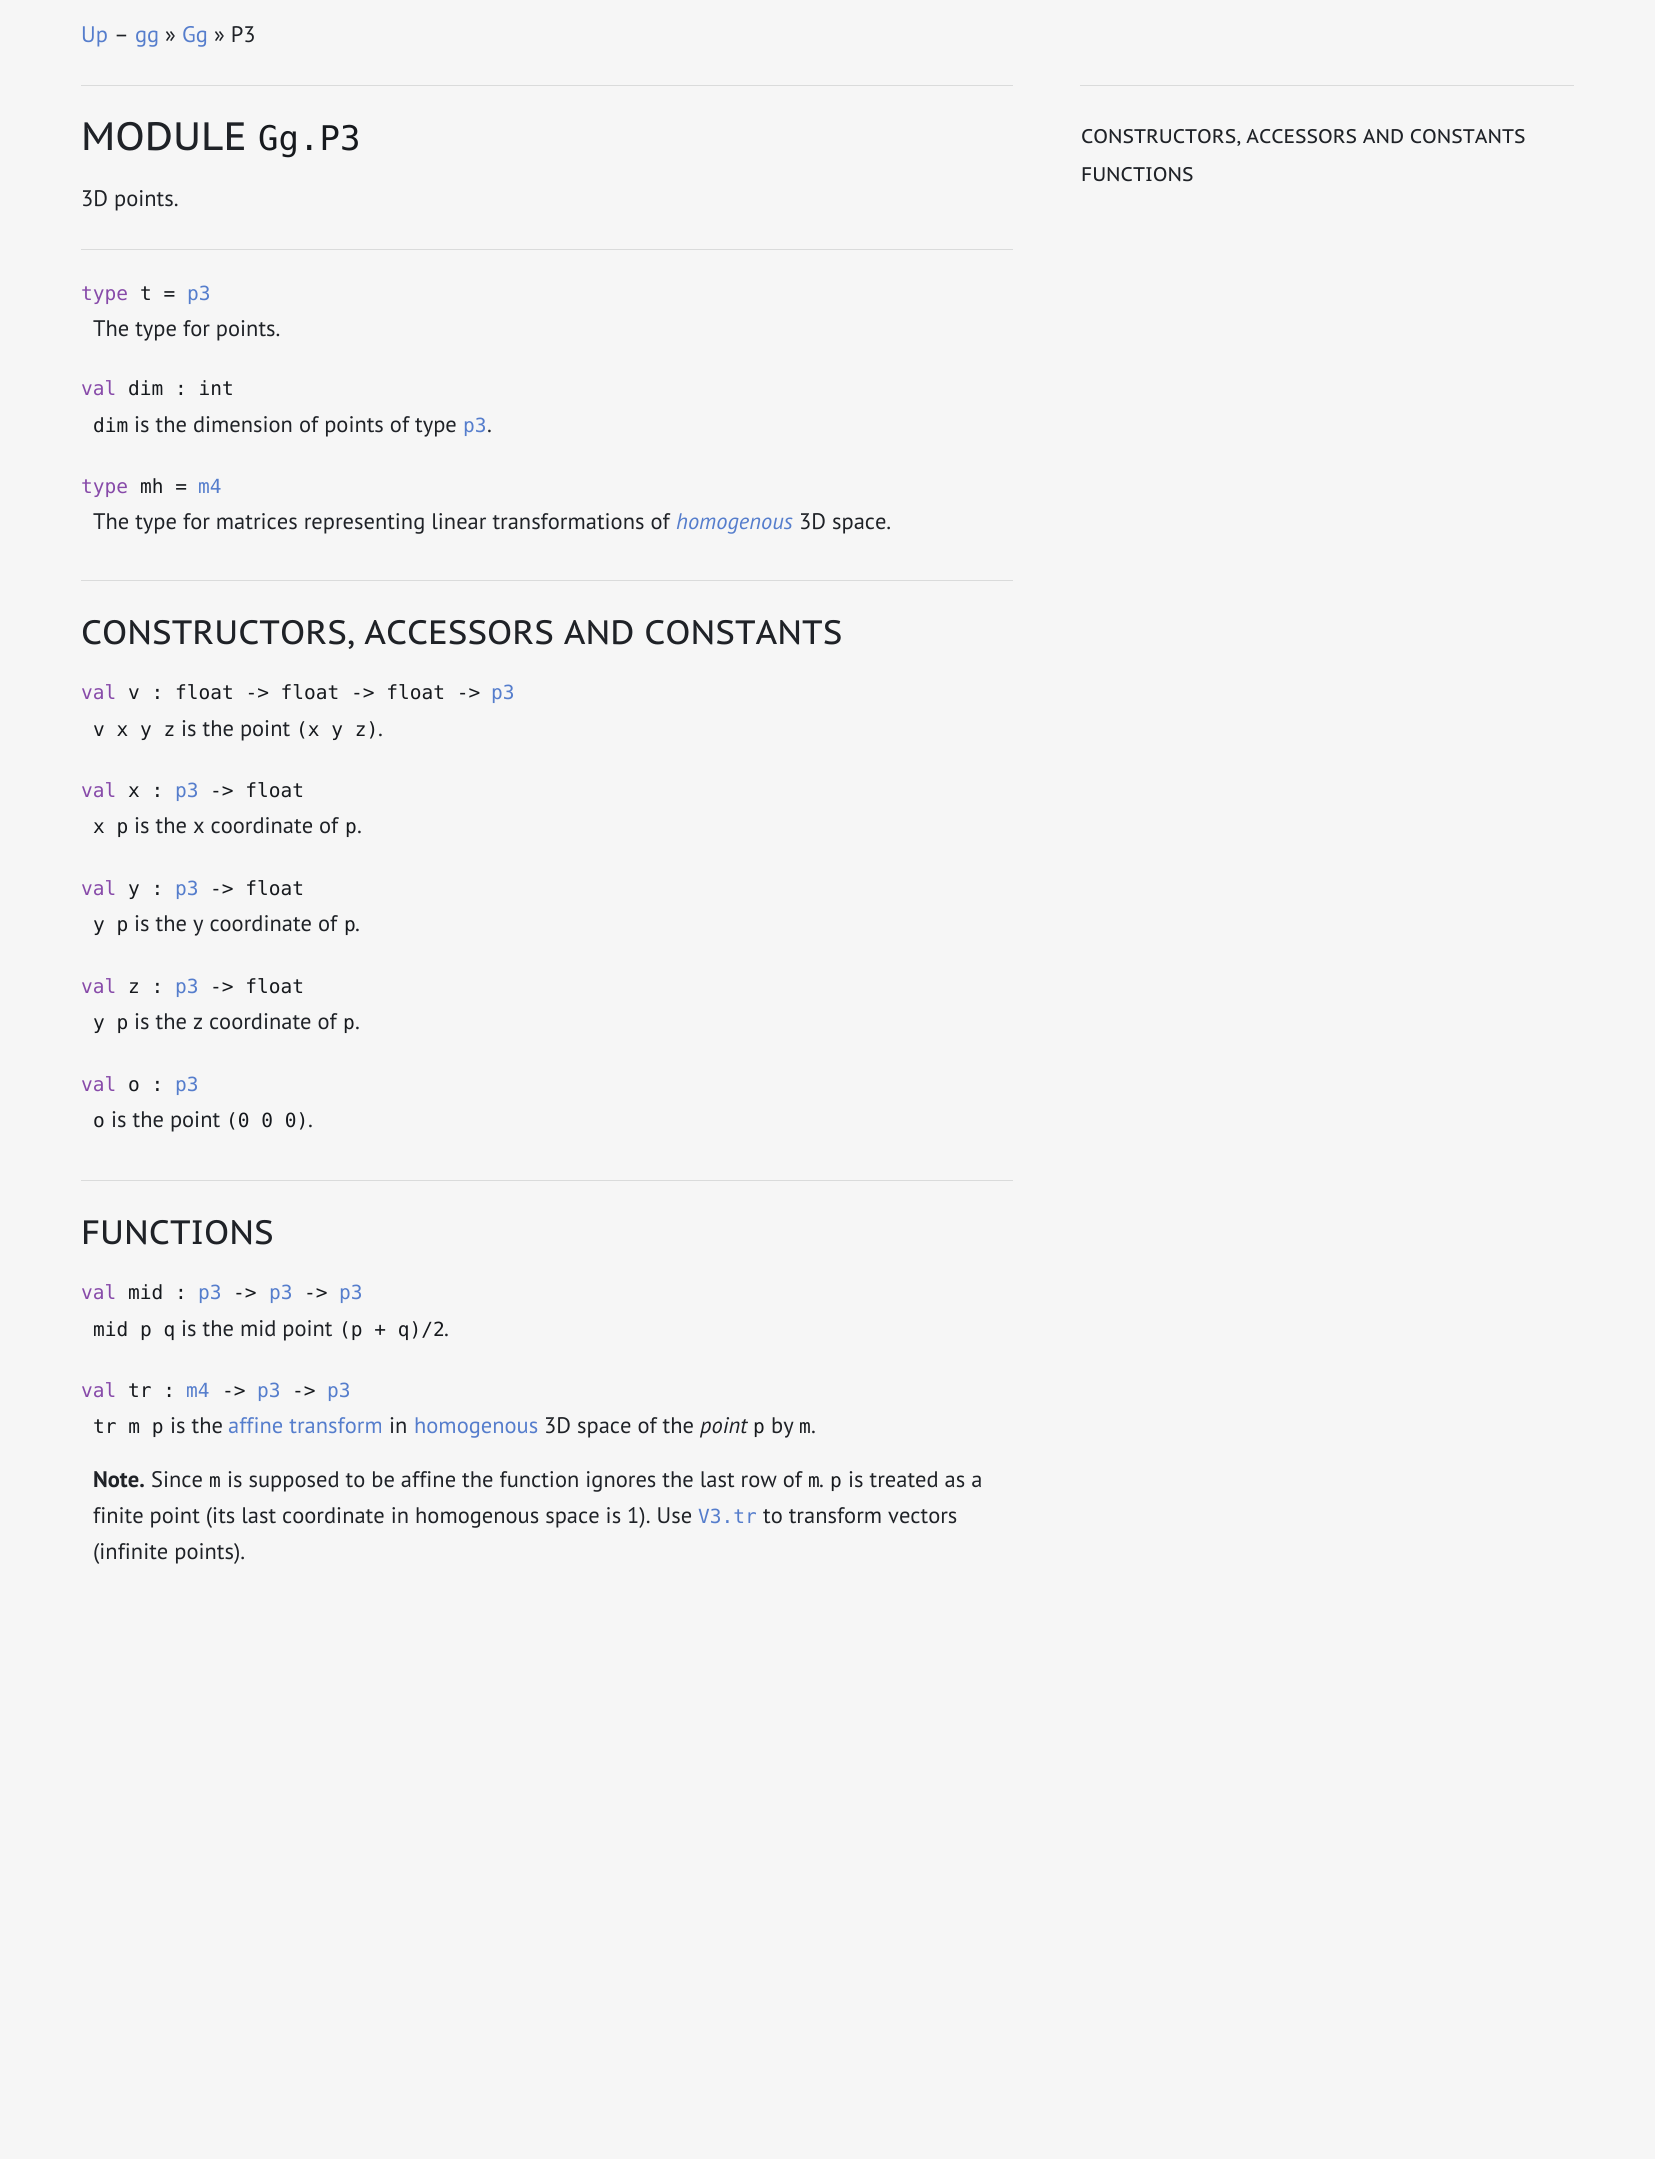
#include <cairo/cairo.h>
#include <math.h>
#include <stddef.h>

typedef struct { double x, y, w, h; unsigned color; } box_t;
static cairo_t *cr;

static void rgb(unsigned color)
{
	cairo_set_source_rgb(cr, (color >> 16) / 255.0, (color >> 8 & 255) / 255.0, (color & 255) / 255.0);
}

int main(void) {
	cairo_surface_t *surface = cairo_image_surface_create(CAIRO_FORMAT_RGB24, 1655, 2159);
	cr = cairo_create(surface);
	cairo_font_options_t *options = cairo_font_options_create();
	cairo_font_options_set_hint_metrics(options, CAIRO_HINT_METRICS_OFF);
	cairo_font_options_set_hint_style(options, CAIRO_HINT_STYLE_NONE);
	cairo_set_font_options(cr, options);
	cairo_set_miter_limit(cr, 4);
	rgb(0xf6f6f6);
	cairo_paint(cr);
	{
		static const box_t items[] = {
			{81, 85, 932, 1, 0xdadbdb},
			{1080, 85, 494, 1, 0xdadbdb},
			{81, 249, 932, 1, 0xdadbdb},
			{81, 580, 932, 1, 0xdadbdb},
			{81, 1180, 932, 1, 0xdadbdb},
		};
		for (size_t i = 0; i < sizeof items / sizeof *items; i++) {
			rgb(items[i].color);
			cairo_rectangle(cr, items[i].x, items[i].y, items[i].w, items[i].h);
			cairo_fill(cr);
		}
	}
	cairo_select_font_face(cr, "PT Sans", CAIRO_FONT_SLANT_NORMAL, CAIRO_FONT_WEIGHT_NORMAL);
	cairo_set_font_size(cr, 22.5);
	rgb(0x557dcc);
	cairo_move_to(cr, 81, 42);
	cairo_show_text(cr, "Up");
	rgb(0x1f2227);
	cairo_move_to(cr, 114, 42);
	cairo_show_text(cr, "–");
	rgb(0x557dcc);
	cairo_move_to(cr, 135, 42);
	cairo_show_text(cr, "gg");
	rgb(0x1f2227);
	cairo_move_to(cr, 165, 42);
	cairo_show_text(cr, "»");
	rgb(0x557dcc);
	cairo_move_to(cr, 182, 42);
	cairo_show_text(cr, "Gg");
	rgb(0x1f2227);
	cairo_move_to(cr, 214, 42);
	cairo_show_text(cr, "» P3");
	cairo_select_font_face(cr, "PT Sans Caption", CAIRO_FONT_SLANT_NORMAL, CAIRO_FONT_WEIGHT_NORMAL);
	cairo_set_font_size(cr, 39.5);
	cairo_move_to(cr, 81, 150);
	cairo_show_text(cr, "MODULE");
	cairo_select_font_face(cr, "DejaVu Sans Mono", CAIRO_FONT_SLANT_NORMAL, CAIRO_FONT_WEIGHT_NORMAL);
	cairo_set_font_size(cr, 34);
	rgb(0x16191d);
	cairo_move_to(cr, 258, 150);
	cairo_show_text(cr, "Gg.P3");
	cairo_select_font_face(cr, "PT Sans", CAIRO_FONT_SLANT_NORMAL, CAIRO_FONT_WEIGHT_NORMAL);
	cairo_set_font_size(cr, 22.5);
	rgb(0x1f2227);
	cairo_move_to(cr, 81, 206);
	cairo_show_text(cr, "3D points.");
	cairo_select_font_face(cr, "PT Sans Caption", CAIRO_FONT_SLANT_NORMAL, CAIRO_FONT_WEIGHT_NORMAL);
	cairo_set_font_size(cr, 19.7);
	cairo_move_to(cr, 1081, 143);
	cairo_show_text(cr, "CONSTRUCTORS, ACCESSORS AND CONSTANTS");
	cairo_move_to(cr, 1081, 181);
	cairo_show_text(cr, "FUNCTIONS");
	cairo_select_font_face(cr, "DejaVu Sans Mono", CAIRO_FONT_SLANT_NORMAL, CAIRO_FONT_WEIGHT_NORMAL);
	cairo_set_font_size(cr, 19.5);
	rgb(0x874aa9);
	cairo_move_to(cr, 81, 300);
	cairo_show_text(cr, "type");
	rgb(0x16191d);
	cairo_move_to(cr, 140, 300);
	cairo_show_text(cr, "t =");
	rgb(0x557dcc);
	cairo_move_to(cr, 187, 300);
	cairo_show_text(cr, "p3");
	cairo_select_font_face(cr, "PT Sans", CAIRO_FONT_SLANT_NORMAL, CAIRO_FONT_WEIGHT_NORMAL);
	cairo_set_font_size(cr, 22.5);
	rgb(0x1f2227);
	cairo_move_to(cr, 93, 336);
	cairo_show_text(cr, "The type for points.");
	cairo_select_font_face(cr, "DejaVu Sans Mono", CAIRO_FONT_SLANT_NORMAL, CAIRO_FONT_WEIGHT_NORMAL);
	cairo_set_font_size(cr, 19.5);
	rgb(0x874aa9);
	cairo_move_to(cr, 81, 395);
	cairo_show_text(cr, "val");
	rgb(0x16191d);
	cairo_move_to(cr, 128, 395);
	cairo_show_text(cr, "dim : int");
	cairo_move_to(cr, 93, 432);
	cairo_show_text(cr, "dim");
	cairo_select_font_face(cr, "PT Sans", CAIRO_FONT_SLANT_NORMAL, CAIRO_FONT_WEIGHT_NORMAL);
	cairo_set_font_size(cr, 22.5);
	rgb(0x1f2227);
	cairo_move_to(cr, 134, 432);
	cairo_show_text(cr, "is the dimension of points of type");
	cairo_select_font_face(cr, "DejaVu Sans Mono", CAIRO_FONT_SLANT_NORMAL, CAIRO_FONT_WEIGHT_NORMAL);
	cairo_set_font_size(cr, 19.5);
	rgb(0x557dcc);
	cairo_move_to(cr, 463, 432);
	cairo_show_text(cr, "p3");
	cairo_select_font_face(cr, "PT Sans", CAIRO_FONT_SLANT_NORMAL, CAIRO_FONT_WEIGHT_NORMAL);
	cairo_set_font_size(cr, 22.5);
	rgb(0x1f2227);
	cairo_move_to(cr, 487, 432);
	cairo_show_text(cr, ".");
	cairo_select_font_face(cr, "DejaVu Sans Mono", CAIRO_FONT_SLANT_NORMAL, CAIRO_FONT_WEIGHT_NORMAL);
	cairo_set_font_size(cr, 19.5);
	rgb(0x874aa9);
	cairo_move_to(cr, 81, 493);
	cairo_show_text(cr, "type");
	rgb(0x16191d);
	cairo_move_to(cr, 140, 493);
	cairo_show_text(cr, "mh =");
	rgb(0x557dcc);
	cairo_move_to(cr, 198, 493);
	cairo_show_text(cr, "m4");
	cairo_select_font_face(cr, "PT Sans", CAIRO_FONT_SLANT_NORMAL, CAIRO_FONT_WEIGHT_NORMAL);
	cairo_set_font_size(cr, 22.5);
	rgb(0x1f2227);
	cairo_move_to(cr, 93, 529);
	cairo_show_text(cr, "The type for matrices representing linear transformations of");
	cairo_select_font_face(cr, "PT Sans", CAIRO_FONT_SLANT_ITALIC, CAIRO_FONT_WEIGHT_NORMAL);
	rgb(0x557dcc);
	cairo_move_to(cr, 676, 529);
	cairo_show_text(cr, "homogenous");
	cairo_select_font_face(cr, "PT Sans", CAIRO_FONT_SLANT_NORMAL, CAIRO_FONT_WEIGHT_NORMAL);
	rgb(0x1f2227);
	cairo_move_to(cr, 799, 529);
	cairo_show_text(cr, "3D space.");
	cairo_select_font_face(cr, "PT Sans Caption", CAIRO_FONT_SLANT_NORMAL, CAIRO_FONT_WEIGHT_NORMAL);
	cairo_set_font_size(cr, 33.75);
	cairo_move_to(cr, 81, 644);
	cairo_show_text(cr, "CONSTRUCTORS, ACCESSORS AND CONSTANTS");
	cairo_select_font_face(cr, "DejaVu Sans Mono", CAIRO_FONT_SLANT_NORMAL, CAIRO_FONT_WEIGHT_NORMAL);
	cairo_set_font_size(cr, 19.5);
	rgb(0x874aa9);
	cairo_move_to(cr, 81, 699);
	cairo_show_text(cr, "val");
	rgb(0x16191d);
	cairo_move_to(cr, 128, 699);
	cairo_show_text(cr, "v : float -> float -> float ->");
	rgb(0x557dcc);
	cairo_move_to(cr, 491, 699);
	cairo_show_text(cr, "p3");
	rgb(0x16191d);
	cairo_move_to(cr, 93, 736);
	cairo_show_text(cr, "v x y z");
	cairo_select_font_face(cr, "PT Sans", CAIRO_FONT_SLANT_NORMAL, CAIRO_FONT_WEIGHT_NORMAL);
	cairo_set_font_size(cr, 22.5);
	rgb(0x1f2227);
	cairo_move_to(cr, 181, 736);
	cairo_show_text(cr, "is the point");
	cairo_select_font_face(cr, "DejaVu Sans Mono", CAIRO_FONT_SLANT_NORMAL, CAIRO_FONT_WEIGHT_NORMAL);
	cairo_set_font_size(cr, 19.5);
	rgb(0x16191d);
	cairo_move_to(cr, 296, 736);
	cairo_show_text(cr, "(x y z)");
	cairo_select_font_face(cr, "PT Sans", CAIRO_FONT_SLANT_NORMAL, CAIRO_FONT_WEIGHT_NORMAL);
	cairo_set_font_size(cr, 22.5);
	rgb(0x1f2227);
	cairo_move_to(cr, 378, 736);
	cairo_show_text(cr, ".");
	cairo_select_font_face(cr, "DejaVu Sans Mono", CAIRO_FONT_SLANT_NORMAL, CAIRO_FONT_WEIGHT_NORMAL);
	cairo_set_font_size(cr, 19.5);
	rgb(0x874aa9);
	cairo_move_to(cr, 81, 797);
	cairo_show_text(cr, "val");
	rgb(0x16191d);
	cairo_move_to(cr, 128, 797);
	cairo_show_text(cr, "x :");
	rgb(0x557dcc);
	cairo_move_to(cr, 175, 797);
	cairo_show_text(cr, "p3");
	rgb(0x16191d);
	cairo_move_to(cr, 210, 797);
	cairo_show_text(cr, "-> float");
	cairo_move_to(cr, 93, 833);
	cairo_show_text(cr, "x p");
	cairo_select_font_face(cr, "PT Sans", CAIRO_FONT_SLANT_NORMAL, CAIRO_FONT_WEIGHT_NORMAL);
	cairo_set_font_size(cr, 22.5);
	rgb(0x1f2227);
	cairo_move_to(cr, 134, 833);
	cairo_show_text(cr, "is the x coordinate of");
	cairo_select_font_face(cr, "DejaVu Sans Mono", CAIRO_FONT_SLANT_NORMAL, CAIRO_FONT_WEIGHT_NORMAL);
	cairo_set_font_size(cr, 19.5);
	rgb(0x16191d);
	cairo_move_to(cr, 345, 833);
	cairo_show_text(cr, "p");
	cairo_select_font_face(cr, "PT Sans", CAIRO_FONT_SLANT_NORMAL, CAIRO_FONT_WEIGHT_NORMAL);
	cairo_set_font_size(cr, 22.5);
	rgb(0x1f2227);
	cairo_move_to(cr, 357, 833);
	cairo_show_text(cr, ".");
	cairo_select_font_face(cr, "DejaVu Sans Mono", CAIRO_FONT_SLANT_NORMAL, CAIRO_FONT_WEIGHT_NORMAL);
	cairo_set_font_size(cr, 19.5);
	rgb(0x874aa9);
	cairo_move_to(cr, 81, 895);
	cairo_show_text(cr, "val");
	rgb(0x16191d);
	cairo_move_to(cr, 128, 895);
	cairo_show_text(cr, "y :");
	rgb(0x557dcc);
	cairo_move_to(cr, 175, 895);
	cairo_show_text(cr, "p3");
	rgb(0x16191d);
	cairo_move_to(cr, 210, 895);
	cairo_show_text(cr, "-> float");
	cairo_move_to(cr, 93, 931);
	cairo_show_text(cr, "y p");
	cairo_select_font_face(cr, "PT Sans", CAIRO_FONT_SLANT_NORMAL, CAIRO_FONT_WEIGHT_NORMAL);
	cairo_set_font_size(cr, 22.5);
	rgb(0x1f2227);
	cairo_move_to(cr, 134, 931);
	cairo_show_text(cr, "is the y coordinate of");
	cairo_select_font_face(cr, "DejaVu Sans Mono", CAIRO_FONT_SLANT_NORMAL, CAIRO_FONT_WEIGHT_NORMAL);
	cairo_set_font_size(cr, 19.5);
	rgb(0x16191d);
	cairo_move_to(cr, 344, 931);
	cairo_show_text(cr, "p");
	cairo_select_font_face(cr, "PT Sans", CAIRO_FONT_SLANT_NORMAL, CAIRO_FONT_WEIGHT_NORMAL);
	cairo_set_font_size(cr, 22.5);
	rgb(0x1f2227);
	cairo_move_to(cr, 355, 931);
	cairo_show_text(cr, ".");
	cairo_select_font_face(cr, "DejaVu Sans Mono", CAIRO_FONT_SLANT_NORMAL, CAIRO_FONT_WEIGHT_NORMAL);
	cairo_set_font_size(cr, 19.5);
	rgb(0x874aa9);
	cairo_move_to(cr, 81, 993);
	cairo_show_text(cr, "val");
	rgb(0x16191d);
	cairo_move_to(cr, 128, 993);
	cairo_show_text(cr, "z :");
	rgb(0x557dcc);
	cairo_move_to(cr, 175, 993);
	cairo_show_text(cr, "p3");
	rgb(0x16191d);
	cairo_move_to(cr, 210, 993);
	cairo_show_text(cr, "-> float");
	cairo_move_to(cr, 93, 1029);
	cairo_show_text(cr, "y p");
	cairo_select_font_face(cr, "PT Sans", CAIRO_FONT_SLANT_NORMAL, CAIRO_FONT_WEIGHT_NORMAL);
	cairo_set_font_size(cr, 22.5);
	rgb(0x1f2227);
	cairo_move_to(cr, 134, 1029);
	cairo_show_text(cr, "is the z coordinate of");
	cairo_select_font_face(cr, "DejaVu Sans Mono", CAIRO_FONT_SLANT_NORMAL, CAIRO_FONT_WEIGHT_NORMAL);
	cairo_set_font_size(cr, 19.5);
	rgb(0x16191d);
	cairo_move_to(cr, 343, 1029);
	cairo_show_text(cr, "p");
	cairo_select_font_face(cr, "PT Sans", CAIRO_FONT_SLANT_NORMAL, CAIRO_FONT_WEIGHT_NORMAL);
	cairo_set_font_size(cr, 22.5);
	rgb(0x1f2227);
	cairo_move_to(cr, 355, 1029);
	cairo_show_text(cr, ".");
	cairo_select_font_face(cr, "DejaVu Sans Mono", CAIRO_FONT_SLANT_NORMAL, CAIRO_FONT_WEIGHT_NORMAL);
	cairo_set_font_size(cr, 19.5);
	rgb(0x874aa9);
	cairo_move_to(cr, 81, 1091);
	cairo_show_text(cr, "val");
	rgb(0x16191d);
	cairo_move_to(cr, 128, 1091);
	cairo_show_text(cr, "o :");
	rgb(0x557dcc);
	cairo_move_to(cr, 175, 1091);
	cairo_show_text(cr, "p3");
	rgb(0x16191d);
	cairo_move_to(cr, 93, 1127);
	cairo_show_text(cr, "o");
	cairo_select_font_face(cr, "PT Sans", CAIRO_FONT_SLANT_NORMAL, CAIRO_FONT_WEIGHT_NORMAL);
	cairo_set_font_size(cr, 22.5);
	rgb(0x1f2227);
	cairo_move_to(cr, 111, 1127);
	cairo_show_text(cr, "is the point");
	cairo_select_font_face(cr, "DejaVu Sans Mono", CAIRO_FONT_SLANT_NORMAL, CAIRO_FONT_WEIGHT_NORMAL);
	cairo_set_font_size(cr, 19.5);
	rgb(0x16191d);
	cairo_move_to(cr, 226, 1127);
	cairo_show_text(cr, "(0 0 0)");
	cairo_select_font_face(cr, "PT Sans", CAIRO_FONT_SLANT_NORMAL, CAIRO_FONT_WEIGHT_NORMAL);
	cairo_set_font_size(cr, 22.5);
	rgb(0x1f2227);
	cairo_move_to(cr, 308, 1127);
	cairo_show_text(cr, ".");
	cairo_select_font_face(cr, "PT Sans Caption", CAIRO_FONT_SLANT_NORMAL, CAIRO_FONT_WEIGHT_NORMAL);
	cairo_set_font_size(cr, 33.75);
	cairo_move_to(cr, 81, 1244);
	cairo_show_text(cr, "FUNCTIONS");
	cairo_select_font_face(cr, "DejaVu Sans Mono", CAIRO_FONT_SLANT_NORMAL, CAIRO_FONT_WEIGHT_NORMAL);
	cairo_set_font_size(cr, 19.5);
	rgb(0x874aa9);
	cairo_move_to(cr, 81, 1299);
	cairo_show_text(cr, "val");
	rgb(0x16191d);
	cairo_move_to(cr, 128, 1299);
	cairo_show_text(cr, "mid :");
	rgb(0x557dcc);
	cairo_move_to(cr, 198, 1299);
	cairo_show_text(cr, "p3");
	rgb(0x16191d);
	cairo_move_to(cr, 233, 1299);
	cairo_show_text(cr, "->");
	rgb(0x557dcc);
	cairo_move_to(cr, 269, 1299);
	cairo_show_text(cr, "p3");
	rgb(0x16191d);
	cairo_move_to(cr, 304, 1299);
	cairo_show_text(cr, "->");
	rgb(0x557dcc);
	cairo_move_to(cr, 339, 1299);
	cairo_show_text(cr, "p3");
	rgb(0x16191d);
	cairo_move_to(cr, 93, 1336);
	cairo_show_text(cr, "mid p q");
	cairo_select_font_face(cr, "PT Sans", CAIRO_FONT_SLANT_NORMAL, CAIRO_FONT_WEIGHT_NORMAL);
	cairo_set_font_size(cr, 22.5);
	rgb(0x1f2227);
	cairo_move_to(cr, 181, 1336);
	cairo_show_text(cr, "is the mid point");
	cairo_select_font_face(cr, "DejaVu Sans Mono", CAIRO_FONT_SLANT_NORMAL, CAIRO_FONT_WEIGHT_NORMAL);
	cairo_set_font_size(cr, 19.5);
	rgb(0x16191d);
	cairo_move_to(cr, 339, 1336);
	cairo_show_text(cr, "(p + q)/2");
	cairo_select_font_face(cr, "PT Sans", CAIRO_FONT_SLANT_NORMAL, CAIRO_FONT_WEIGHT_NORMAL);
	cairo_set_font_size(cr, 22.5);
	rgb(0x1f2227);
	cairo_move_to(cr, 444, 1336);
	cairo_show_text(cr, ".");
	cairo_select_font_face(cr, "DejaVu Sans Mono", CAIRO_FONT_SLANT_NORMAL, CAIRO_FONT_WEIGHT_NORMAL);
	cairo_set_font_size(cr, 19.5);
	rgb(0x874aa9);
	cairo_move_to(cr, 81, 1397);
	cairo_show_text(cr, "val");
	rgb(0x16191d);
	cairo_move_to(cr, 128, 1397);
	cairo_show_text(cr, "tr :");
	rgb(0x557dcc);
	cairo_move_to(cr, 186, 1397);
	cairo_show_text(cr, "m4");
	rgb(0x16191d);
	cairo_move_to(cr, 222, 1397);
	cairo_show_text(cr, "->");
	rgb(0x557dcc);
	cairo_move_to(cr, 257, 1397);
	cairo_show_text(cr, "p3");
	rgb(0x16191d);
	cairo_move_to(cr, 292, 1397);
	cairo_show_text(cr, "->");
	rgb(0x557dcc);
	cairo_move_to(cr, 327, 1397);
	cairo_show_text(cr, "p3");
	rgb(0x16191d);
	cairo_move_to(cr, 93, 1433);
	cairo_show_text(cr, "tr m p");
	cairo_select_font_face(cr, "PT Sans", CAIRO_FONT_SLANT_NORMAL, CAIRO_FONT_WEIGHT_NORMAL);
	cairo_set_font_size(cr, 22.5);
	rgb(0x1f2227);
	cairo_move_to(cr, 170, 1433);
	cairo_show_text(cr, "is the");
	rgb(0x557dcc);
	cairo_move_to(cr, 228, 1433);
	cairo_show_text(cr, "affine transform");
	rgb(0x1f2227);
	cairo_move_to(cr, 389, 1433);
	cairo_show_text(cr, "in");
	rgb(0x557dcc);
	cairo_move_to(cr, 414, 1433);
	cairo_show_text(cr, "homogenous");
	rgb(0x1f2227);
	cairo_move_to(cr, 544, 1433);
	cairo_show_text(cr, "3D space of the");
	cairo_select_font_face(cr, "PT Sans", CAIRO_FONT_SLANT_ITALIC, CAIRO_FONT_WEIGHT_NORMAL);
	cairo_move_to(cr, 700, 1433);
	cairo_show_text(cr, "point");
	cairo_select_font_face(cr, "DejaVu Sans Mono", CAIRO_FONT_SLANT_NORMAL, CAIRO_FONT_WEIGHT_NORMAL);
	cairo_set_font_size(cr, 19.5);
	rgb(0x16191d);
	cairo_move_to(cr, 753, 1433);
	cairo_show_text(cr, "p");
	cairo_select_font_face(cr, "PT Sans", CAIRO_FONT_SLANT_NORMAL, CAIRO_FONT_WEIGHT_NORMAL);
	cairo_set_font_size(cr, 22.5);
	rgb(0x1f2227);
	cairo_move_to(cr, 771, 1433);
	cairo_show_text(cr, "by");
	cairo_select_font_face(cr, "DejaVu Sans Mono", CAIRO_FONT_SLANT_NORMAL, CAIRO_FONT_WEIGHT_NORMAL);
	cairo_set_font_size(cr, 19.5);
	rgb(0x16191d);
	cairo_move_to(cr, 799, 1433);
	cairo_show_text(cr, "m");
	cairo_select_font_face(cr, "PT Sans", CAIRO_FONT_SLANT_NORMAL, CAIRO_FONT_WEIGHT_NORMAL);
	cairo_set_font_size(cr, 22.5);
	rgb(0x1f2227);
	cairo_move_to(cr, 811, 1433);
	cairo_show_text(cr, ".");
	cairo_select_font_face(cr, "PT Sans", CAIRO_FONT_SLANT_NORMAL, CAIRO_FONT_WEIGHT_BOLD);
	cairo_move_to(cr, 93, 1487);
	cairo_show_text(cr, "Note.");
	cairo_select_font_face(cr, "PT Sans", CAIRO_FONT_SLANT_NORMAL, CAIRO_FONT_WEIGHT_NORMAL);
	cairo_move_to(cr, 151, 1487);
	cairo_show_text(cr, "Since");
	cairo_select_font_face(cr, "DejaVu Sans Mono", CAIRO_FONT_SLANT_NORMAL, CAIRO_FONT_WEIGHT_NORMAL);
	cairo_set_font_size(cr, 19.5);
	rgb(0x16191d);
	cairo_move_to(cr, 209, 1487);
	cairo_show_text(cr, "m");
	cairo_select_font_face(cr, "PT Sans", CAIRO_FONT_SLANT_NORMAL, CAIRO_FONT_WEIGHT_NORMAL);
	cairo_set_font_size(cr, 22.5);
	rgb(0x1f2227);
	cairo_move_to(cr, 227, 1487);
	cairo_show_text(cr, "is supposed to be affine the function ignores the last row of");
	cairo_select_font_face(cr, "DejaVu Sans Mono", CAIRO_FONT_SLANT_NORMAL, CAIRO_FONT_WEIGHT_NORMAL);
	cairo_set_font_size(cr, 19.5);
	rgb(0x16191d);
	cairo_move_to(cr, 808, 1487);
	cairo_show_text(cr, "m");
	cairo_select_font_face(cr, "PT Sans", CAIRO_FONT_SLANT_NORMAL, CAIRO_FONT_WEIGHT_NORMAL);
	cairo_set_font_size(cr, 22.5);
	rgb(0x1f2227);
	cairo_move_to(cr, 819, 1487);
	cairo_show_text(cr, ".");
	cairo_select_font_face(cr, "DejaVu Sans Mono", CAIRO_FONT_SLANT_NORMAL, CAIRO_FONT_WEIGHT_NORMAL);
	cairo_set_font_size(cr, 19.5);
	rgb(0x16191d);
	cairo_move_to(cr, 830, 1487);
	cairo_show_text(cr, "p");
	cairo_select_font_face(cr, "PT Sans", CAIRO_FONT_SLANT_NORMAL, CAIRO_FONT_WEIGHT_NORMAL);
	cairo_set_font_size(cr, 22.5);
	rgb(0x1f2227);
	cairo_move_to(cr, 848, 1487);
	cairo_show_text(cr, "is treated as a");
	cairo_move_to(cr, 93, 1523);
	cairo_show_text(cr, "finite point (its last coordinate in homogenous space is 1). Use");
	cairo_select_font_face(cr, "DejaVu Sans Mono", CAIRO_FONT_SLANT_NORMAL, CAIRO_FONT_WEIGHT_NORMAL);
	cairo_set_font_size(cr, 19.5);
	rgb(0x557dcc);
	cairo_move_to(cr, 698, 1523);
	cairo_show_text(cr, "V3.tr");
	cairo_select_font_face(cr, "PT Sans", CAIRO_FONT_SLANT_NORMAL, CAIRO_FONT_WEIGHT_NORMAL);
	cairo_set_font_size(cr, 22.5);
	rgb(0x1f2227);
	cairo_move_to(cr, 763, 1523);
	cairo_show_text(cr, "to transform vectors");
	cairo_move_to(cr, 93, 1559);
	cairo_show_text(cr, "(infinite points).");
	cairo_surface_write_to_png(surface, "page.png");
	cairo_font_options_destroy(options);
	cairo_destroy(cr);
	cairo_surface_destroy(surface);
	return 0;
}
